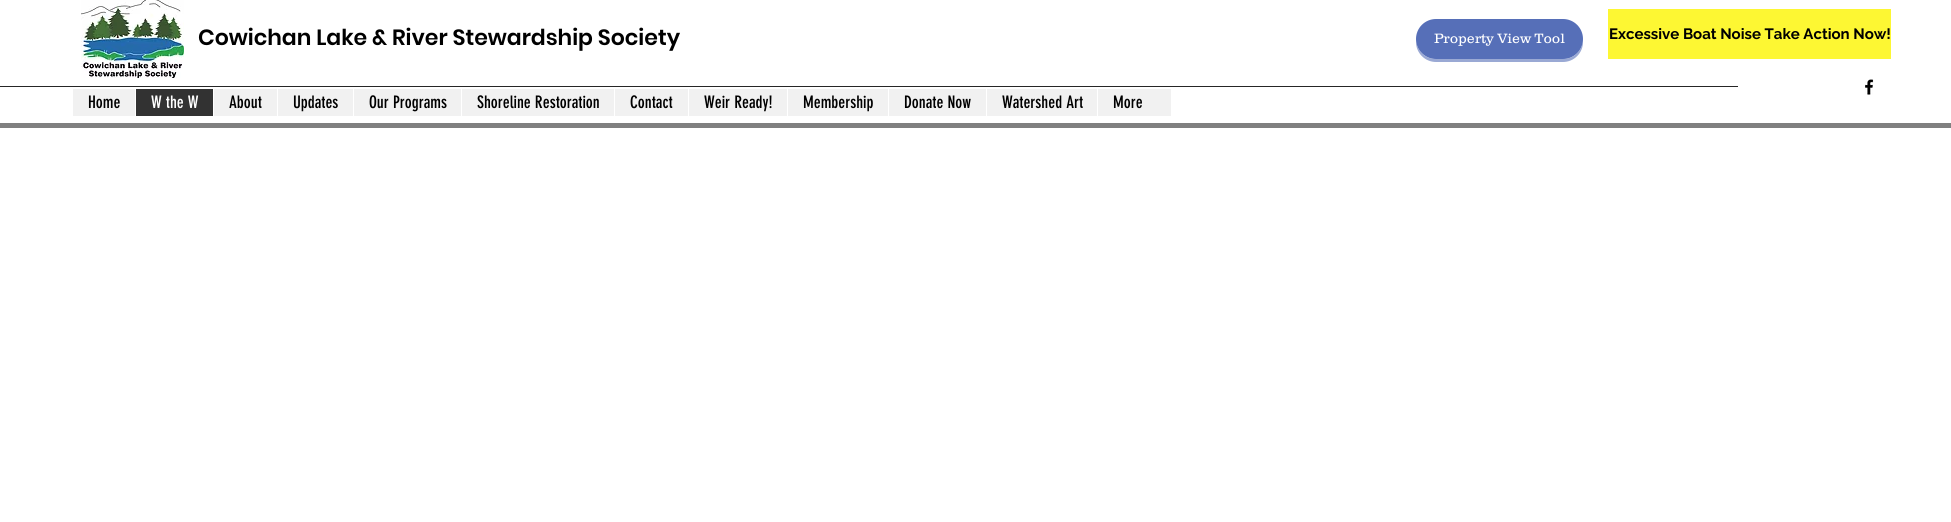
#include <cairo/cairo.h>
#include <math.h>
#include <stddef.h>

typedef struct { double x, y; const char *s; } line_t;
typedef struct { double x, y, w, h; unsigned color; } box_t;
static cairo_t *cr;

static void rgb(unsigned color)
{
	cairo_set_source_rgb(cr, (color >> 16) / 255.0, (color >> 8 & 255) / 255.0, (color & 255) / 255.0);
}

static void rrect(double x, double y, double w, double h, double r)
{
	cairo_new_sub_path(cr);
	cairo_arc(cr, x + w - r, y + h - r, r, 0, M_PI / 2);
	cairo_arc(cr, x + r, y + h - r, r, M_PI / 2, M_PI);
	cairo_arc(cr, x + r, y + r, r, M_PI, 1.5 * M_PI);
	cairo_arc(cr, x + w - r, y + r, r, 1.5 * M_PI, 2 * M_PI);
	cairo_close_path(cr);
}

static void image(const char *path, double x, double y, double w, double h)
{
	cairo_surface_t *image = cairo_image_surface_create_from_png(path);
	cairo_save(cr);
	cairo_set_source_surface(cr, image, x, y);
	cairo_rectangle(cr, x, y, w, h);
	cairo_fill(cr);
	cairo_restore(cr);
	cairo_surface_destroy(image);
}

int main(void) {
	cairo_surface_t *surface = cairo_image_surface_create(CAIRO_FORMAT_RGB24, 1951, 522);
	cr = cairo_create(surface);
	cairo_font_options_t *options = cairo_font_options_create();
	cairo_font_options_set_hint_metrics(options, CAIRO_HINT_METRICS_OFF);
	cairo_font_options_set_hint_style(options, CAIRO_HINT_STYLE_NONE);
	cairo_set_font_options(cr, options);
	cairo_set_miter_limit(cr, 4);
	rgb(0xffffff);
	cairo_paint(cr);
	image("img/1.png", 81, 0, 103, 78);
	rgb(0x9aa9d4);
	cairo_new_path(cr);
	cairo_move_to(cr, 1416, 40);
	cairo_line_to(cr, 1416, 42);
	cairo_curve_to(cr, 1416, 53, 1425, 62, 1436, 62);
	cairo_line_to(cr, 1563, 62);
	cairo_curve_to(cr, 1574, 62, 1583, 53, 1583, 42);
	cairo_line_to(cr, 1583, 40);
	cairo_curve_to(cr, 1582, 51, 1574, 59, 1563, 59);
	cairo_line_to(cr, 1436, 59);
	cairo_curve_to(cr, 1425, 59, 1417, 51, 1416, 40);
	cairo_close_path(cr);
	cairo_fill(cr);
	rgb(0x566fb8);
	rrect(1416, 19, 167, 40, 20);
	cairo_fill(cr);
	rgb(0xfdf733);
	cairo_rectangle(cr, 1608, 9, 283, 50);
	cairo_fill(cr);
	rgb(0x262626);
	cairo_rectangle(cr, 0, 86, 1738, 1);
	cairo_fill(cr);
	image("img/2.png", 1865, 79, 9, 16);
	{
		static const box_t items[] = {
			{73, 89, 1098, 27, 0xf1f1f1},
			{136, 89, 77, 27, 0x323232},
			{135, 89, 1, 27, 0xffffff},
			{213, 89, 1, 27, 0xffffff},
			{277, 89, 1, 27, 0xffffff},
			{353, 89, 1, 27, 0xffffff},
			{461, 89, 1, 27, 0xffffff},
			{614, 89, 1, 27, 0xffffff},
			{688, 89, 1, 27, 0xffffff},
			{787, 89, 1, 27, 0xffffff},
			{888, 89, 1, 27, 0xffffff},
			{986, 89, 1, 27, 0xffffff},
			{1097, 89, 1, 27, 0xffffff},
			{0, 123, 1951, 5, 0x808080},
		};
		for (size_t i = 0; i < sizeof items / sizeof *items; i++) {
			rgb(items[i].color);
			cairo_rectangle(cr, items[i].x, items[i].y, items[i].w, items[i].h);
			cairo_fill(cr);
		}
	}
	cairo_select_font_face(cr, "Poppins SemiBold", CAIRO_FONT_SLANT_NORMAL, CAIRO_FONT_WEIGHT_NORMAL);
	cairo_set_font_size(cr, 22);
	rgb(0x000000);
	cairo_move_to(cr, 198, 45);
	cairo_show_text(cr, "Cowichan Lake & River Stewardship Society");
	cairo_select_font_face(cr, "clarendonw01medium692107 Light", CAIRO_FONT_SLANT_NORMAL, CAIRO_FONT_WEIGHT_NORMAL);
	cairo_set_font_size(cr, 14);
	rgb(0xffffff);
	cairo_move_to(cr, 1434, 43);
	cairo_show_text(cr, "Property View Tool");
	cairo_select_font_face(cr, "Raleway", CAIRO_FONT_SLANT_NORMAL, CAIRO_FONT_WEIGHT_BOLD);
	cairo_set_font_size(cr, 15);
	rgb(0x000000);
	cairo_move_to(cr, 1609, 39);
	cairo_show_text(cr, "Excessive Boat Noise Take Action Now!");
	cairo_select_font_face(cr, "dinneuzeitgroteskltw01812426", CAIRO_FONT_SLANT_NORMAL, CAIRO_FONT_WEIGHT_NORMAL);
	cairo_set_font_size(cr, 17);
	cairo_move_to(cr, 88, 108);
	cairo_show_text(cr, "Home");
	rgb(0xffffff);
	cairo_move_to(cr, 151, 108);
	cairo_show_text(cr, "W the W");
	rgb(0x000000);
	{
		static const line_t items[] = {
			{229, 108, "About"},
			{293, 108, "Updates"},
			{369, 108, "Our Programs"},
			{477, 108, "Shoreline Restoration"},
			{630, 108, "Contact"},
			{704, 108, "Weir Ready!"},
			{803, 108, "Membership"},
			{904, 108, "Donate Now"},
			{1002, 108, "Watershed Art"},
			{1113, 108, "More"},
		};
		for (size_t i = 0; i < sizeof items / sizeof *items; i++) {
			cairo_move_to(cr, items[i].x, items[i].y);
			cairo_show_text(cr, items[i].s);
		}
	}
	cairo_surface_write_to_png(surface, "page.png");
	cairo_font_options_destroy(options);
	cairo_destroy(cr);
	cairo_surface_destroy(surface);
	return 0;
}
